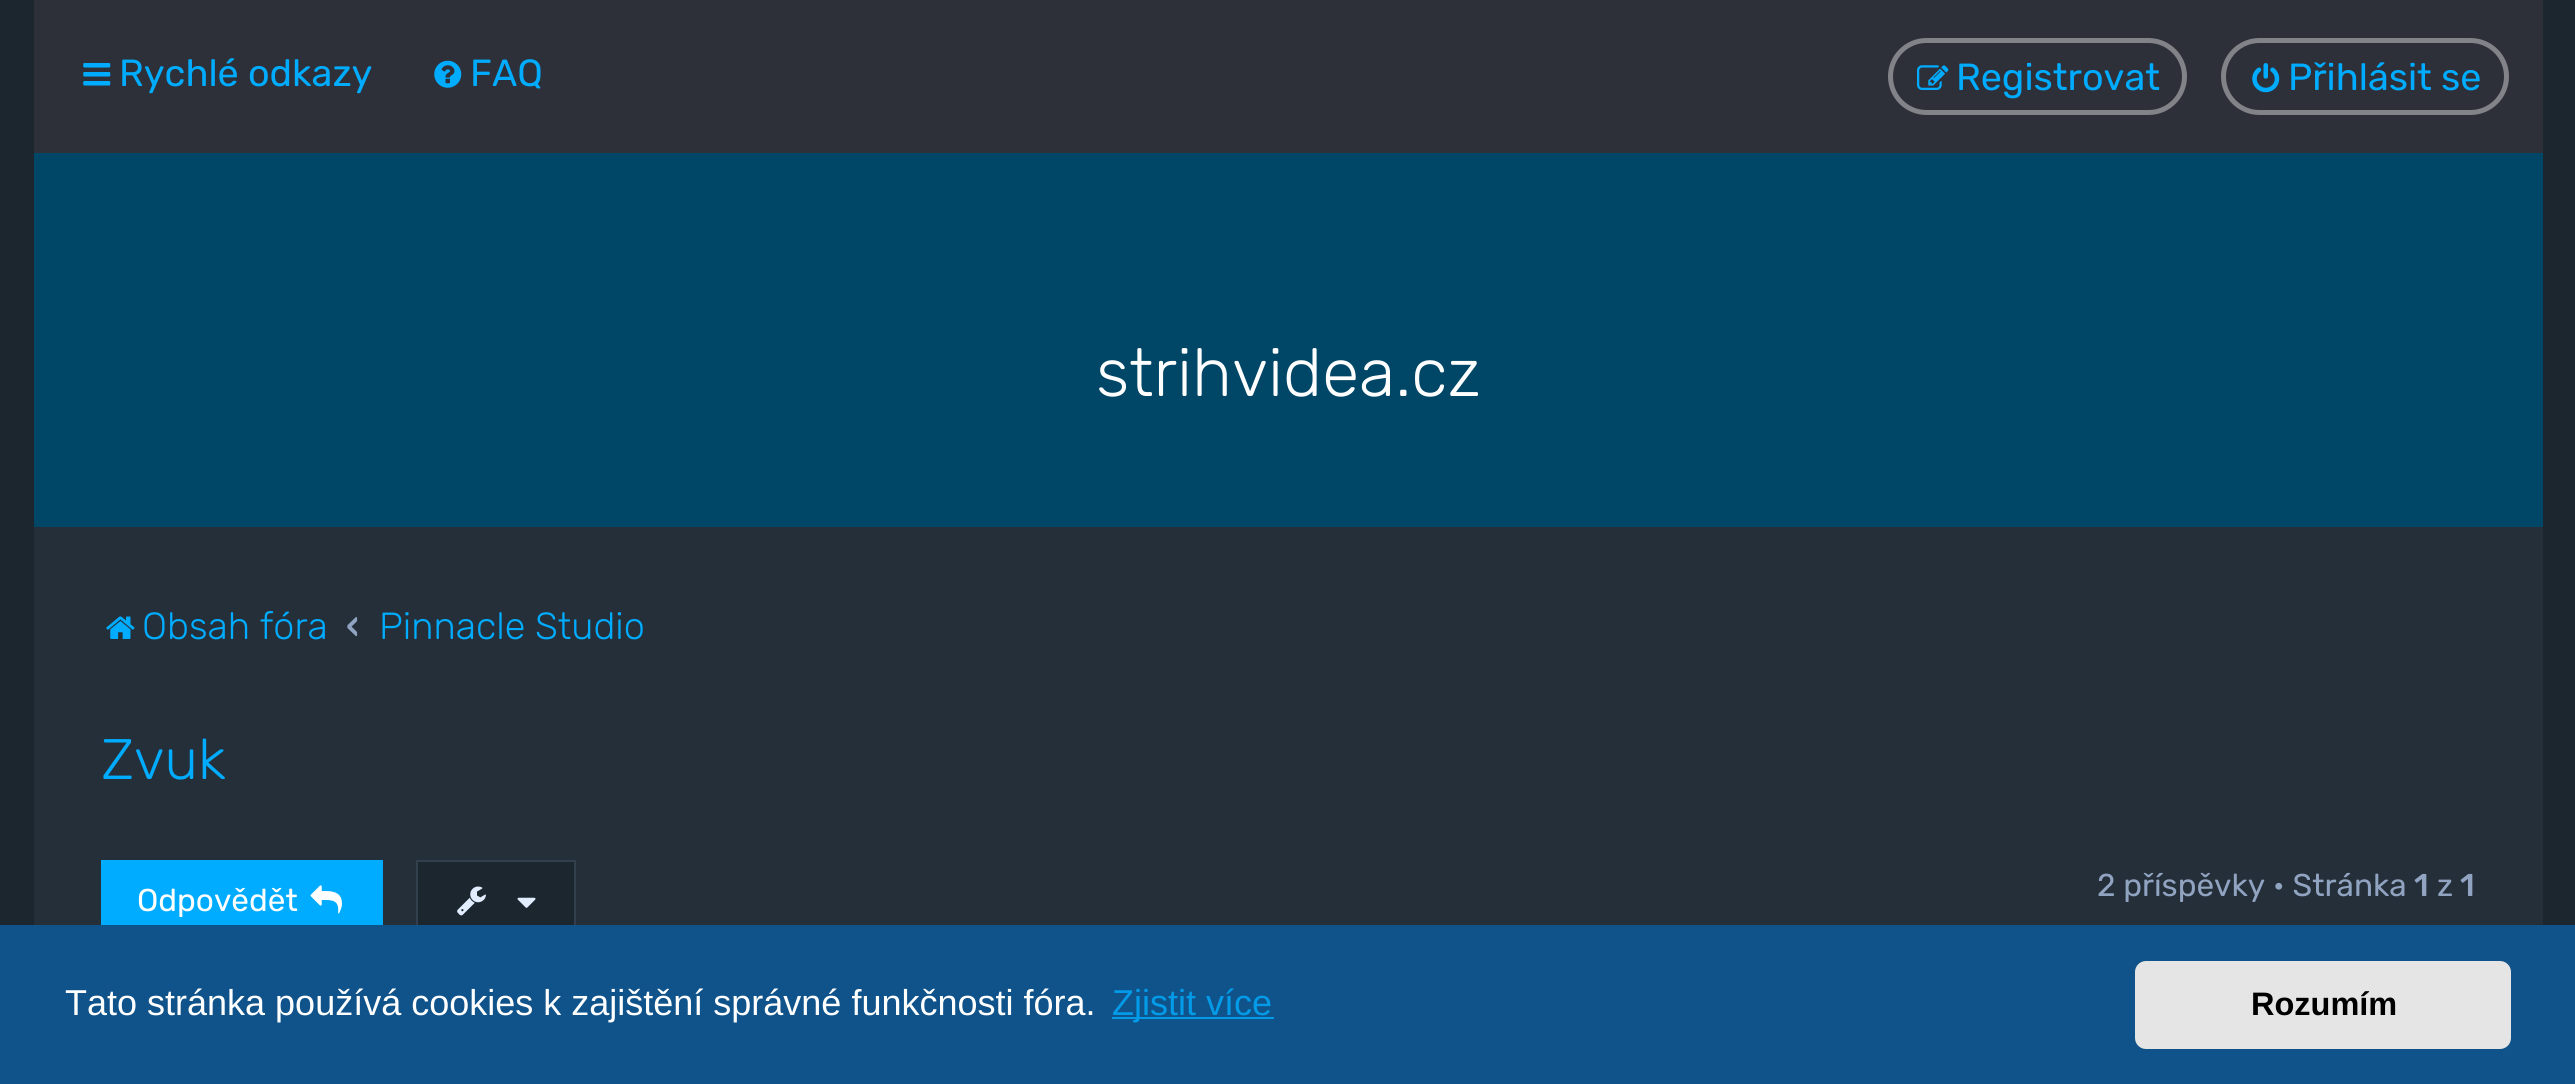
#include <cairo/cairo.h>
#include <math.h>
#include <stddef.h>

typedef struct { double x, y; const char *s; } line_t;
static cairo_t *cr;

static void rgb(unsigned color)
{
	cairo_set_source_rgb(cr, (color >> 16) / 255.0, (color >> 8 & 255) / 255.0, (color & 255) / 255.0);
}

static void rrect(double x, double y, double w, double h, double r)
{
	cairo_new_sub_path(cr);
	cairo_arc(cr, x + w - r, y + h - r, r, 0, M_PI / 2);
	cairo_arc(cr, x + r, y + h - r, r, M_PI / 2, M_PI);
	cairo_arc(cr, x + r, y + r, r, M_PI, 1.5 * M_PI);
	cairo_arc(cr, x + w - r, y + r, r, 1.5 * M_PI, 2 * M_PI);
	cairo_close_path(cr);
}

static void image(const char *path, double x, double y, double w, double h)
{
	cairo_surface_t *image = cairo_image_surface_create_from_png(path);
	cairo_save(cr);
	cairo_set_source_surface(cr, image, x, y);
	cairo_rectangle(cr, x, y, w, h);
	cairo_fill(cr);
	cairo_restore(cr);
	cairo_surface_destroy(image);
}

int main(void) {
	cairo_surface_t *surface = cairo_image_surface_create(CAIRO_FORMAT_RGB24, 2575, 1084);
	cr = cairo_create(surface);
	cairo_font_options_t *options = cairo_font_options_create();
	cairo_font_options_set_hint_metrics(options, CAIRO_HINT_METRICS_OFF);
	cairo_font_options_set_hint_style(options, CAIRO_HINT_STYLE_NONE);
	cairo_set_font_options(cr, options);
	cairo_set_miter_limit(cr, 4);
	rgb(0x1c262f);
	cairo_paint(cr);
	rgb(0x2d3039);
	cairo_rectangle(cr, 34, 0, 2509, 153);
	cairo_fill(cr);
	image("img/1.png", 83, 63, 28, 23);
	image("img/2.png", 434, 60, 28, 28);
	rrect(1890.5, 40.5, 294, 72, 36);
	rgb(0x818388);
	cairo_set_line_width(cr, 5);
	cairo_stroke(cr);
	image("img/3.png", 1917, 65, 32, 25);
	rrect(2223.5, 40.5, 283, 72, 36);
	cairo_stroke(cr);
	image("img/4.png", 2252, 63, 28, 30);
	rgb(0x004666);
	cairo_rectangle(cr, 34, 153, 2509, 374);
	cairo_fill(cr);
	rgb(0x252f39);
	cairo_rectangle(cr, 34, 527, 2509, 398);
	cairo_fill(cr);
	image("img/5.png", 106, 616, 29, 23);
	rgb(0x00acff);
	cairo_rectangle(cr, 101, 860, 282, 65);
	cairo_fill(cr);
	image("img/6.png", 310, 885, 32, 29);
	rgb(0x1c262f);
	cairo_rectangle(cr, 418, 862, 156, 63);
	cairo_fill(cr);
	cairo_rectangle(cr, 417, 861, 158, 83);
	rgb(0x323f4e);
	cairo_set_line_width(cr, 2);
	cairo_stroke(cr);
	image("img/7.png", 457, 886, 29, 30);
	image("img/8.png", 517, 897, 19, 11);
	rgb(0x0f538a);
	cairo_rectangle(cr, 0, 925, 2575, 159);
	cairo_fill(cr);
	rgb(0x039ae8);
	cairo_rectangle(cr, 1112, 1017, 162, 2);
	cairo_fill(cr);
	rgb(0xe5e5e5);
	rrect(2135, 961, 376, 88, 11);
	cairo_fill(cr);
	cairo_select_font_face(cr, "Rubik", CAIRO_FONT_SLANT_NORMAL, CAIRO_FONT_WEIGHT_NORMAL);
	cairo_set_font_size(cr, 37.75);
	rgb(0x00acff);
	{
		static const line_t items[] = {
			{119, 86, "Rychlé odkazy"},
			{470, 86, "FAQ"},
			{1956, 90, "Registrovat"},
			{2288, 90, "Přihlásit se"},
		};
		for (size_t i = 0; i < sizeof items / sizeof *items; i++) {
			cairo_move_to(cr, items[i].x, items[i].y);
			cairo_show_text(cr, items[i].s);
		}
	}
	cairo_select_font_face(cr, "Rubik Light", CAIRO_FONT_SLANT_NORMAL, CAIRO_FONT_WEIGHT_NORMAL);
	cairo_set_font_size(cr, 67.5);
	rgb(0xffffff);
	cairo_move_to(cr, 1096, 396);
	cairo_show_text(cr, "strihvidea.cz");
	cairo_set_font_size(cr, 37.75);
	rgb(0x00acff);
	cairo_move_to(cr, 142, 639);
	cairo_show_text(cr, "Obsah fóra");
	cairo_select_font_face(cr, "Rubik Medium", CAIRO_FONT_SLANT_NORMAL, CAIRO_FONT_WEIGHT_NORMAL);
	rgb(0x90a3c0);
	cairo_move_to(cr, 346, 639);
	cairo_show_text(cr, "‹");
	cairo_select_font_face(cr, "Rubik Light", CAIRO_FONT_SLANT_NORMAL, CAIRO_FONT_WEIGHT_NORMAL);
	rgb(0x00acff);
	cairo_move_to(cr, 379, 639);
	cairo_show_text(cr, "Pinnacle Studio");
	cairo_set_font_size(cr, 57);
	cairo_move_to(cr, 101, 779);
	cairo_show_text(cr, "Zvuk");
	cairo_select_font_face(cr, "Rubik", CAIRO_FONT_SLANT_NORMAL, CAIRO_FONT_WEIGHT_NORMAL);
	cairo_set_font_size(cr, 31.5);
	rgb(0xffffff);
	cairo_move_to(cr, 137, 911);
	cairo_show_text(cr, "Odpovědět");
	rgb(0x90a3c0);
	cairo_move_to(cr, 2097, 896);
	cairo_show_text(cr, "2 příspěvky • Stránka");
	cairo_select_font_face(cr, "Rubik Medium", CAIRO_FONT_SLANT_NORMAL, CAIRO_FONT_WEIGHT_NORMAL);
	cairo_move_to(cr, 2414, 896);
	cairo_show_text(cr, "1");
	cairo_select_font_face(cr, "Rubik", CAIRO_FONT_SLANT_NORMAL, CAIRO_FONT_WEIGHT_NORMAL);
	cairo_move_to(cr, 2437, 896);
	cairo_show_text(cr, "z");
	cairo_select_font_face(cr, "Rubik Medium", CAIRO_FONT_SLANT_NORMAL, CAIRO_FONT_WEIGHT_NORMAL);
	cairo_move_to(cr, 2460, 896);
	cairo_show_text(cr, "1");
	cairo_select_font_face(cr, "Liberation Sans", CAIRO_FONT_SLANT_NORMAL, CAIRO_FONT_WEIGHT_NORMAL);
	cairo_set_font_size(cr, 36);
	rgb(0xffffff);
	cairo_move_to(cr, 65, 1015);
	cairo_show_text(cr, "Tato stránka používá cookies k zajištění správné funkčnosti fóra.");
	rgb(0x039ae8);
	cairo_move_to(cr, 1112, 1015);
	cairo_show_text(cr, "Zjistit více");
	cairo_select_font_face(cr, "Liberation Sans", CAIRO_FONT_SLANT_NORMAL, CAIRO_FONT_WEIGHT_BOLD);
	cairo_set_font_size(cr, 32.5);
	rgb(0x000000);
	cairo_move_to(cr, 2251, 1015);
	cairo_show_text(cr, "Rozumím");
	cairo_surface_write_to_png(surface, "page.png");
	cairo_font_options_destroy(options);
	cairo_destroy(cr);
	cairo_surface_destroy(surface);
	return 0;
}
